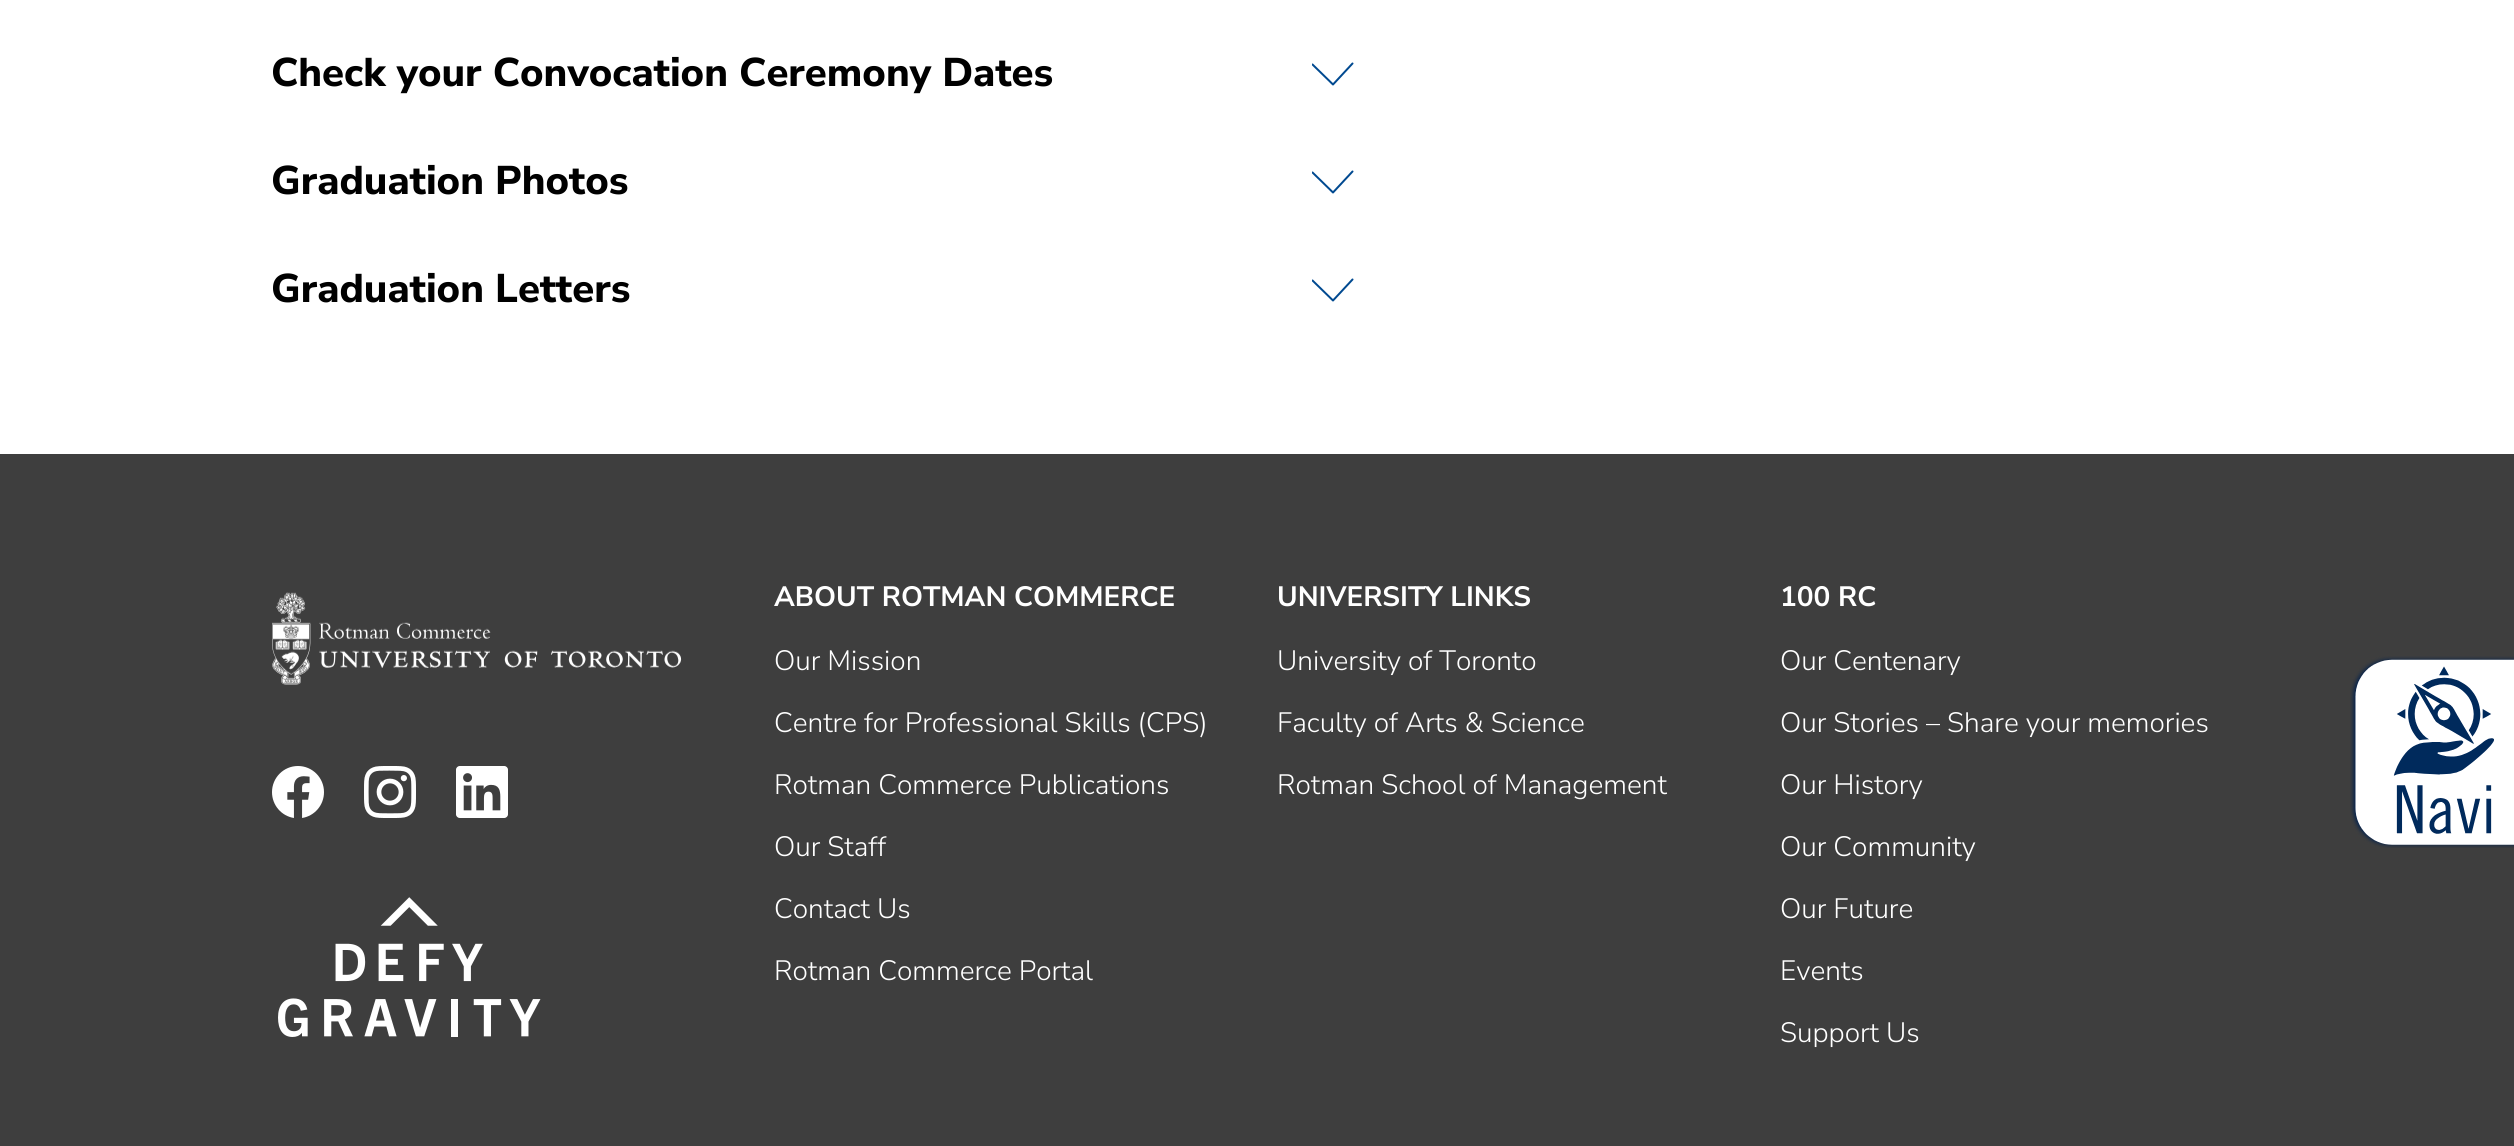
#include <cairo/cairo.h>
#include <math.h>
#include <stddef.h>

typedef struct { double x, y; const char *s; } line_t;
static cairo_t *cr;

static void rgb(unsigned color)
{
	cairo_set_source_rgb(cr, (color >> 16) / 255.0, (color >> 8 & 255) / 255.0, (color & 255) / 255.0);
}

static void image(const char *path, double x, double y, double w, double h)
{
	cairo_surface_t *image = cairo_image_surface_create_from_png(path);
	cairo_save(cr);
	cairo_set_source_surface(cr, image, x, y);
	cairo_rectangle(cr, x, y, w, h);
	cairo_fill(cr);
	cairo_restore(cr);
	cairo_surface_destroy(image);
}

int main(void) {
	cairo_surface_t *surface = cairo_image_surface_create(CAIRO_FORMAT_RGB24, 2514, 1146);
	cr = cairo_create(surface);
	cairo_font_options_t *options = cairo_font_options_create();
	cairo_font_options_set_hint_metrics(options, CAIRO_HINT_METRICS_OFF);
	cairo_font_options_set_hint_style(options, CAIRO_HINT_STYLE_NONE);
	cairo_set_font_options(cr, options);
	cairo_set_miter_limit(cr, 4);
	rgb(0xffffff);
	cairo_paint(cr);
	cairo_save(cr);
	cairo_rectangle(cr, 1312, 62, 42, 24);
	cairo_clip(cr);
	cairo_new_path(cr);
	cairo_move_to(cr, 1352.5, 63.5);
	cairo_line_to(cr, 1333, 84.5);
	cairo_line_to(cr, 1312.5, 64.5);
	rgb(0x004990);
	cairo_set_line_cap(cr, CAIRO_LINE_CAP_ROUND);
	cairo_set_line_join(cr, CAIRO_LINE_JOIN_ROUND);
	cairo_stroke(cr);
	cairo_restore(cr);
	cairo_save(cr);
	cairo_rectangle(cr, 1312, 170, 42, 24);
	cairo_clip(cr);
	cairo_new_path(cr);
	cairo_move_to(cr, 1352.5, 171.5);
	cairo_line_to(cr, 1333, 192.5);
	cairo_line_to(cr, 1312.5, 172.5);
	rgb(0x004990);
	cairo_set_line_cap(cr, CAIRO_LINE_CAP_ROUND);
	cairo_set_line_join(cr, CAIRO_LINE_JOIN_ROUND);
	cairo_stroke(cr);
	cairo_restore(cr);
	cairo_save(cr);
	cairo_rectangle(cr, 1312, 278, 42, 24);
	cairo_clip(cr);
	cairo_new_path(cr);
	cairo_move_to(cr, 1352.5, 279.5);
	cairo_line_to(cr, 1333, 300.5);
	cairo_line_to(cr, 1312.5, 280.5);
	rgb(0x004990);
	cairo_set_line_cap(cr, CAIRO_LINE_CAP_ROUND);
	cairo_set_line_join(cr, CAIRO_LINE_JOIN_ROUND);
	cairo_stroke(cr);
	cairo_restore(cr);
	rgb(0x3e3e3e);
	cairo_rectangle(cr, 0, 454, 2514, 692);
	cairo_fill(cr);
	image("img/1.png", 272, 592, 410, 93);
	image("img/2.png", 272, 766, 52, 52);
	image("img/3.png", 364, 766, 52, 52);
	image("img/4.png", 456, 766, 52, 52);
	image("img/5.png", 278, 897, 263, 140);
	image("img/6.png", 2350, 656, 164, 192);
	cairo_select_font_face(cr, "Nunito Sans ExtraBold", CAIRO_FONT_SLANT_NORMAL, CAIRO_FONT_WEIGHT_NORMAL);
	cairo_set_font_size(cr, 40);
	rgb(0x000000);
	{
		static const line_t items[] = {
			{271, 86, "Check your Convocation Ceremony Dates"},
			{271, 194, "Graduation Photos"},
			{271, 302, "Graduation Letters"},
		};
		for (size_t i = 0; i < sizeof items / sizeof *items; i++) {
			cairo_move_to(cr, items[i].x, items[i].y);
			cairo_show_text(cr, items[i].s);
		}
	}
	cairo_select_font_face(cr, "Nunito Sans", CAIRO_FONT_SLANT_NORMAL, CAIRO_FONT_WEIGHT_BOLD);
	cairo_set_font_size(cr, 28);
	rgb(0xffffff);
	cairo_move_to(cr, 774, 606);
	cairo_show_text(cr, "ABOUT ROTMAN COMMERCE");
	cairo_select_font_face(cr, "Nunito Sans Light", CAIRO_FONT_SLANT_NORMAL, CAIRO_FONT_WEIGHT_NORMAL);
	{
		static const line_t items[] = {
			{774, 670, "Our Mission"},
			{774, 732, "Centre for Professional Skills (CPS)"},
			{774, 794, "Rotman Commerce Publications"},
			{774, 856, "Our Staff"},
			{774, 918, "Contact Us"},
			{774, 980, "Rotman Commerce Portal"},
		};
		for (size_t i = 0; i < sizeof items / sizeof *items; i++) {
			cairo_move_to(cr, items[i].x, items[i].y);
			cairo_show_text(cr, items[i].s);
		}
	}
	cairo_select_font_face(cr, "Nunito Sans", CAIRO_FONT_SLANT_NORMAL, CAIRO_FONT_WEIGHT_BOLD);
	cairo_move_to(cr, 1277, 606);
	cairo_show_text(cr, "UNIVERSITY LINKS");
	cairo_select_font_face(cr, "Nunito Sans Light", CAIRO_FONT_SLANT_NORMAL, CAIRO_FONT_WEIGHT_NORMAL);
	{
		static const line_t items[] = {
			{1277, 670, "University of Toronto"},
			{1277, 732, "Faculty of Arts & Science"},
			{1277, 794, "Rotman School of Management"},
		};
		for (size_t i = 0; i < sizeof items / sizeof *items; i++) {
			cairo_move_to(cr, items[i].x, items[i].y);
			cairo_show_text(cr, items[i].s);
		}
	}
	cairo_select_font_face(cr, "Nunito Sans", CAIRO_FONT_SLANT_NORMAL, CAIRO_FONT_WEIGHT_BOLD);
	cairo_move_to(cr, 1780, 606);
	cairo_show_text(cr, "100 RC");
	cairo_select_font_face(cr, "Nunito Sans Light", CAIRO_FONT_SLANT_NORMAL, CAIRO_FONT_WEIGHT_NORMAL);
	{
		static const line_t items[] = {
			{1780, 670, "Our Centenary"},
			{1780, 732, "Our Stories – Share your memories"},
			{1780, 794, "Our History"},
			{1780, 856, "Our Community"},
			{1780, 918, "Our Future"},
			{1780, 980, "Events"},
			{1780, 1042, "Support Us"},
		};
		for (size_t i = 0; i < sizeof items / sizeof *items; i++) {
			cairo_move_to(cr, items[i].x, items[i].y);
			cairo_show_text(cr, items[i].s);
		}
	}
	cairo_surface_write_to_png(surface, "page.png");
	cairo_font_options_destroy(options);
	cairo_destroy(cr);
	cairo_surface_destroy(surface);
	return 0;
}
